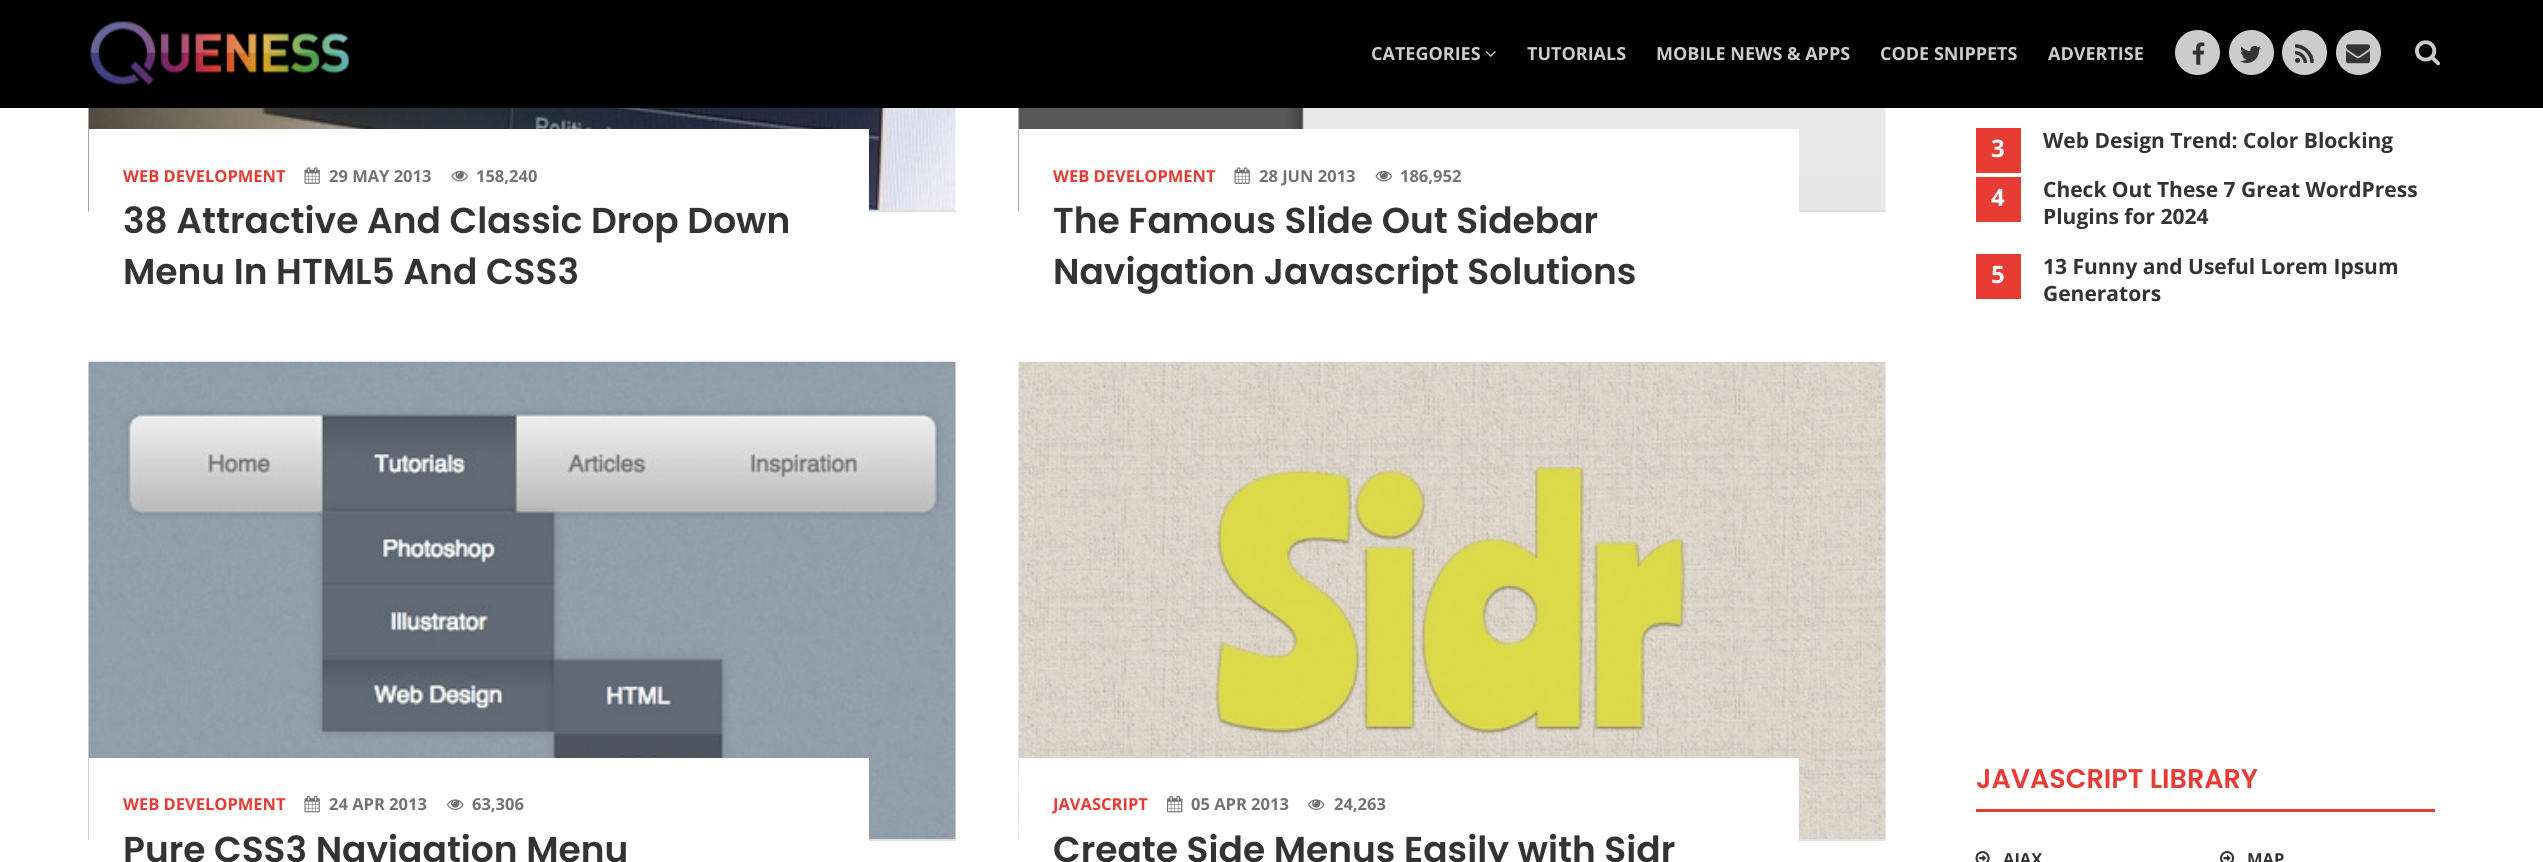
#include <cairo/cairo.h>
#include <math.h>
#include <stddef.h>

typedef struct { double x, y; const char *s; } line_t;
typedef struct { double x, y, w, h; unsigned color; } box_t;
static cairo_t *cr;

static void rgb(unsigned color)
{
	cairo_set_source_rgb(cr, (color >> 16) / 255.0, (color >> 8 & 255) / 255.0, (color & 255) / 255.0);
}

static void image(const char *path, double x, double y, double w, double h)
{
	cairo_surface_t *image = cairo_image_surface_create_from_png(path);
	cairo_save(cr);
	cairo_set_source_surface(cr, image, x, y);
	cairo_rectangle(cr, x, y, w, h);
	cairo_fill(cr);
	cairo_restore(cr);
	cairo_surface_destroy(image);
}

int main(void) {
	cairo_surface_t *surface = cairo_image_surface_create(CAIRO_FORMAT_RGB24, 2543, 862);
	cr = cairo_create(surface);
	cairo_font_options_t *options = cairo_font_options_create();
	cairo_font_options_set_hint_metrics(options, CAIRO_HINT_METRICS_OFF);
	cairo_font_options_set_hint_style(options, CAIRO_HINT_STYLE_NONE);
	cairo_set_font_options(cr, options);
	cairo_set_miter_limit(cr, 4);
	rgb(0xffffff);
	cairo_paint(cr);
	rgb(0x000000);
	cairo_rectangle(cr, 0, 0, 2543, 108);
	cairo_fill(cr);
	image("img/1.png", 90, 21, 259, 65);
	image("img/2.png", 1485, 51, 11, 6);
	rgb(0xcccccc);
	cairo_arc(cr, 2197.5, 52.5, 22.5, 0, 2 * M_PI);
	cairo_fill(cr);
	image("img/3.png", 2192, 42, 13, 23);
	cairo_arc(cr, 2251.5, 52.5, 22.5, 0, 2 * M_PI);
	cairo_fill(cr);
	image("img/4.png", 2240, 45, 21, 18);
	cairo_arc(cr, 2304.5, 52.5, 22.5, 0, 2 * M_PI);
	cairo_fill(cr);
	image("img/5.png", 2295, 44, 19, 19);
	cairo_arc(cr, 2358.5, 52.5, 22.5, 0, 2 * M_PI);
	cairo_fill(cr);
	image("img/6.png", 2346, 44, 24, 20);
	image("img/7.png", 2415, 40, 26, 26);
	image("img/8.png", 88, 108, 868, 104);
	rgb(0xe0e0e0);
	cairo_rectangle(cr, 869, 210, 87, 2);
	cairo_fill(cr);
	rgb(0xffffff);
	cairo_rectangle(cr, 89, 129, 780, 83);
	cairo_fill(cr);
	image("img/9.png", 304, 167, 16, 17);
	image("img/10.png", 451, 170, 17, 12);
	image("img/11.png", 1018, 108, 868, 104);
	rgb(0xe0e0e0);
	cairo_rectangle(cr, 1799, 210, 87, 2);
	cairo_fill(cr);
	rgb(0xffffff);
	cairo_rectangle(cr, 1019, 129, 780, 83);
	cairo_fill(cr);
	image("img/9.png", 1234, 167, 16, 17);
	image("img/10.png", 1375, 170, 17, 12);
	image("img/12.png", 88, 361, 868, 479);
	rgb(0xe0e0e0);
	cairo_rectangle(cr, 869, 839, 87, 2);
	cairo_fill(cr);
	rgb(0xffffff);
	cairo_rectangle(cr, 89, 758, 780, 82);
	cairo_fill(cr);
	image("img/13.png", 304, 795, 16, 18);
	image("img/14.png", 447, 799, 17, 11);
	image("img/15.png", 1018, 361, 868, 479);
	rgb(0xe0e0e0);
	cairo_rectangle(cr, 1799, 839, 87, 2);
	cairo_fill(cr);
	rgb(0xffffff);
	cairo_rectangle(cr, 1019, 758, 780, 82);
	cairo_fill(cr);
	image("img/16.png", 1167, 795, 16, 18);
	image("img/14.png", 1308, 799, 17, 11);
	{
		static const box_t items[] = {
			{1976, 128, 45, 45, 0xe73b33},
			{1976, 177, 45, 45, 0xe73b33},
			{1976, 254, 45, 45, 0xe73b33},
			{1976, 809, 459, 3, 0xe73b33},
		};
		for (size_t i = 0; i < sizeof items / sizeof *items; i++) {
			rgb(items[i].color);
			cairo_rectangle(cr, items[i].x, items[i].y, items[i].w, items[i].h);
			cairo_fill(cr);
		}
	}
	image("img/17.png", 1975, 851, 15, 11);
	image("img/18.png", 2220, 851, 15, 11);
	cairo_select_font_face(cr, "Open Sans", CAIRO_FONT_SLANT_NORMAL, CAIRO_FONT_WEIGHT_BOLD);
	cairo_set_font_size(cr, 18);
	rgb(0xcccccc);
	{
		static const line_t items[] = {
			{1371, 60, "CATEGORIES"},
			{1527, 60, "TUTORIALS"},
			{1656, 60, "MOBILE NEWS & APPS"},
			{1880, 60, "CODE SNIPPETS"},
			{2048, 60, "ADVERTISE"},
		};
		for (size_t i = 0; i < sizeof items / sizeof *items; i++) {
			cairo_move_to(cr, items[i].x, items[i].y);
			cairo_show_text(cr, items[i].s);
		}
	}
	cairo_set_font_size(cr, 16.5);
	rgb(0xe73b33);
	cairo_move_to(cr, 123, 182);
	cairo_show_text(cr, "WEB DEVELOPMENT");
	rgb(0x737373);
	cairo_move_to(cr, 329, 182);
	cairo_show_text(cr, "29 MAY 2013");
	cairo_move_to(cr, 476, 182);
	cairo_show_text(cr, "158,240");
	cairo_select_font_face(cr, "Poppins SemiBold", CAIRO_FONT_SLANT_NORMAL, CAIRO_FONT_WEIGHT_NORMAL);
	cairo_set_font_size(cr, 36);
	rgb(0x333333);
	cairo_move_to(cr, 123, 233);
	cairo_show_text(cr, "38 Attractive And Classic Drop Down");
	cairo_move_to(cr, 123, 284);
	cairo_show_text(cr, "Menu In HTML5 And CSS3");
	cairo_select_font_face(cr, "Open Sans", CAIRO_FONT_SLANT_NORMAL, CAIRO_FONT_WEIGHT_BOLD);
	cairo_set_font_size(cr, 16.5);
	rgb(0xe73b33);
	cairo_move_to(cr, 1053, 182);
	cairo_show_text(cr, "WEB DEVELOPMENT");
	rgb(0x737373);
	cairo_move_to(cr, 1259, 182);
	cairo_show_text(cr, "28 JUN 2013");
	cairo_move_to(cr, 1400, 182);
	cairo_show_text(cr, "186,952");
	cairo_select_font_face(cr, "Poppins SemiBold", CAIRO_FONT_SLANT_NORMAL, CAIRO_FONT_WEIGHT_NORMAL);
	cairo_set_font_size(cr, 36);
	rgb(0x333333);
	cairo_move_to(cr, 1053, 233);
	cairo_show_text(cr, "The Famous Slide Out Sidebar");
	cairo_move_to(cr, 1053, 284);
	cairo_show_text(cr, "Navigation Javascript Solutions");
	cairo_select_font_face(cr, "Open Sans", CAIRO_FONT_SLANT_NORMAL, CAIRO_FONT_WEIGHT_BOLD);
	cairo_set_font_size(cr, 16.5);
	rgb(0xe73b33);
	cairo_move_to(cr, 123, 810);
	cairo_show_text(cr, "WEB DEVELOPMENT");
	rgb(0x737373);
	cairo_move_to(cr, 329, 810);
	cairo_show_text(cr, "24 APR 2013");
	cairo_move_to(cr, 472, 810);
	cairo_show_text(cr, "63,306");
	cairo_select_font_face(cr, "Poppins SemiBold", CAIRO_FONT_SLANT_NORMAL, CAIRO_FONT_WEIGHT_NORMAL);
	cairo_set_font_size(cr, 36);
	rgb(0x333333);
	cairo_move_to(cr, 123, 862);
	cairo_show_text(cr, "Pure CSS3 Navigation Menu");
	cairo_select_font_face(cr, "Open Sans", CAIRO_FONT_SLANT_NORMAL, CAIRO_FONT_WEIGHT_BOLD);
	cairo_set_font_size(cr, 16.5);
	rgb(0xe73b33);
	cairo_move_to(cr, 1053, 810);
	cairo_show_text(cr, "JAVASCRIPT");
	rgb(0x737373);
	cairo_move_to(cr, 1191, 810);
	cairo_show_text(cr, "05 APR 2013");
	cairo_move_to(cr, 1334, 810);
	cairo_show_text(cr, "24,263");
	cairo_select_font_face(cr, "Poppins SemiBold", CAIRO_FONT_SLANT_NORMAL, CAIRO_FONT_WEIGHT_NORMAL);
	cairo_set_font_size(cr, 36);
	rgb(0x333333);
	cairo_move_to(cr, 1053, 862);
	cairo_show_text(cr, "Create Side Menus Easily with Sidr");
	cairo_select_font_face(cr, "Open Sans", CAIRO_FONT_SLANT_NORMAL, CAIRO_FONT_WEIGHT_BOLD);
	cairo_set_font_size(cr, 24);
	rgb(0xffffff);
	cairo_move_to(cr, 1991, 157);
	cairo_show_text(cr, "3");
	cairo_set_font_size(cr, 21);
	rgb(0x333333);
	cairo_move_to(cr, 2043, 148);
	cairo_show_text(cr, "Web Design Trend: Color Blocking");
	cairo_set_font_size(cr, 24);
	rgb(0xffffff);
	cairo_move_to(cr, 1991, 206);
	cairo_show_text(cr, "4");
	cairo_set_font_size(cr, 21);
	rgb(0x333333);
	cairo_move_to(cr, 2043, 197);
	cairo_show_text(cr, "Check Out These 7 Great WordPress");
	cairo_move_to(cr, 2043, 224);
	cairo_show_text(cr, "Plugins for 2024");
	cairo_set_font_size(cr, 24);
	rgb(0xffffff);
	cairo_move_to(cr, 1991, 283);
	cairo_show_text(cr, "5");
	cairo_set_font_size(cr, 21);
	rgb(0x333333);
	cairo_move_to(cr, 2043, 274);
	cairo_show_text(cr, "13 Funny and Useful Lorem Ipsum");
	cairo_move_to(cr, 2043, 301);
	cairo_show_text(cr, "Generators");
	cairo_select_font_face(cr, "Poppins SemiBold", CAIRO_FONT_SLANT_NORMAL, CAIRO_FONT_WEIGHT_NORMAL);
	cairo_set_font_size(cr, 27);
	rgb(0xe73b33);
	cairo_move_to(cr, 1976, 788);
	cairo_show_text(cr, "JAVASCRIPT LIBRARY");
	cairo_select_font_face(cr, "Open Sans", CAIRO_FONT_SLANT_NORMAL, CAIRO_FONT_WEIGHT_BOLD);
	cairo_set_font_size(cr, 16.5);
	rgb(0x333333);
	cairo_move_to(cr, 2003, 865);
	cairo_show_text(cr, "AJAX");
	cairo_move_to(cr, 2247, 865);
	cairo_show_text(cr, "MAP");
	cairo_surface_write_to_png(surface, "page.png");
	cairo_font_options_destroy(options);
	cairo_destroy(cr);
	cairo_surface_destroy(surface);
	return 0;
}
